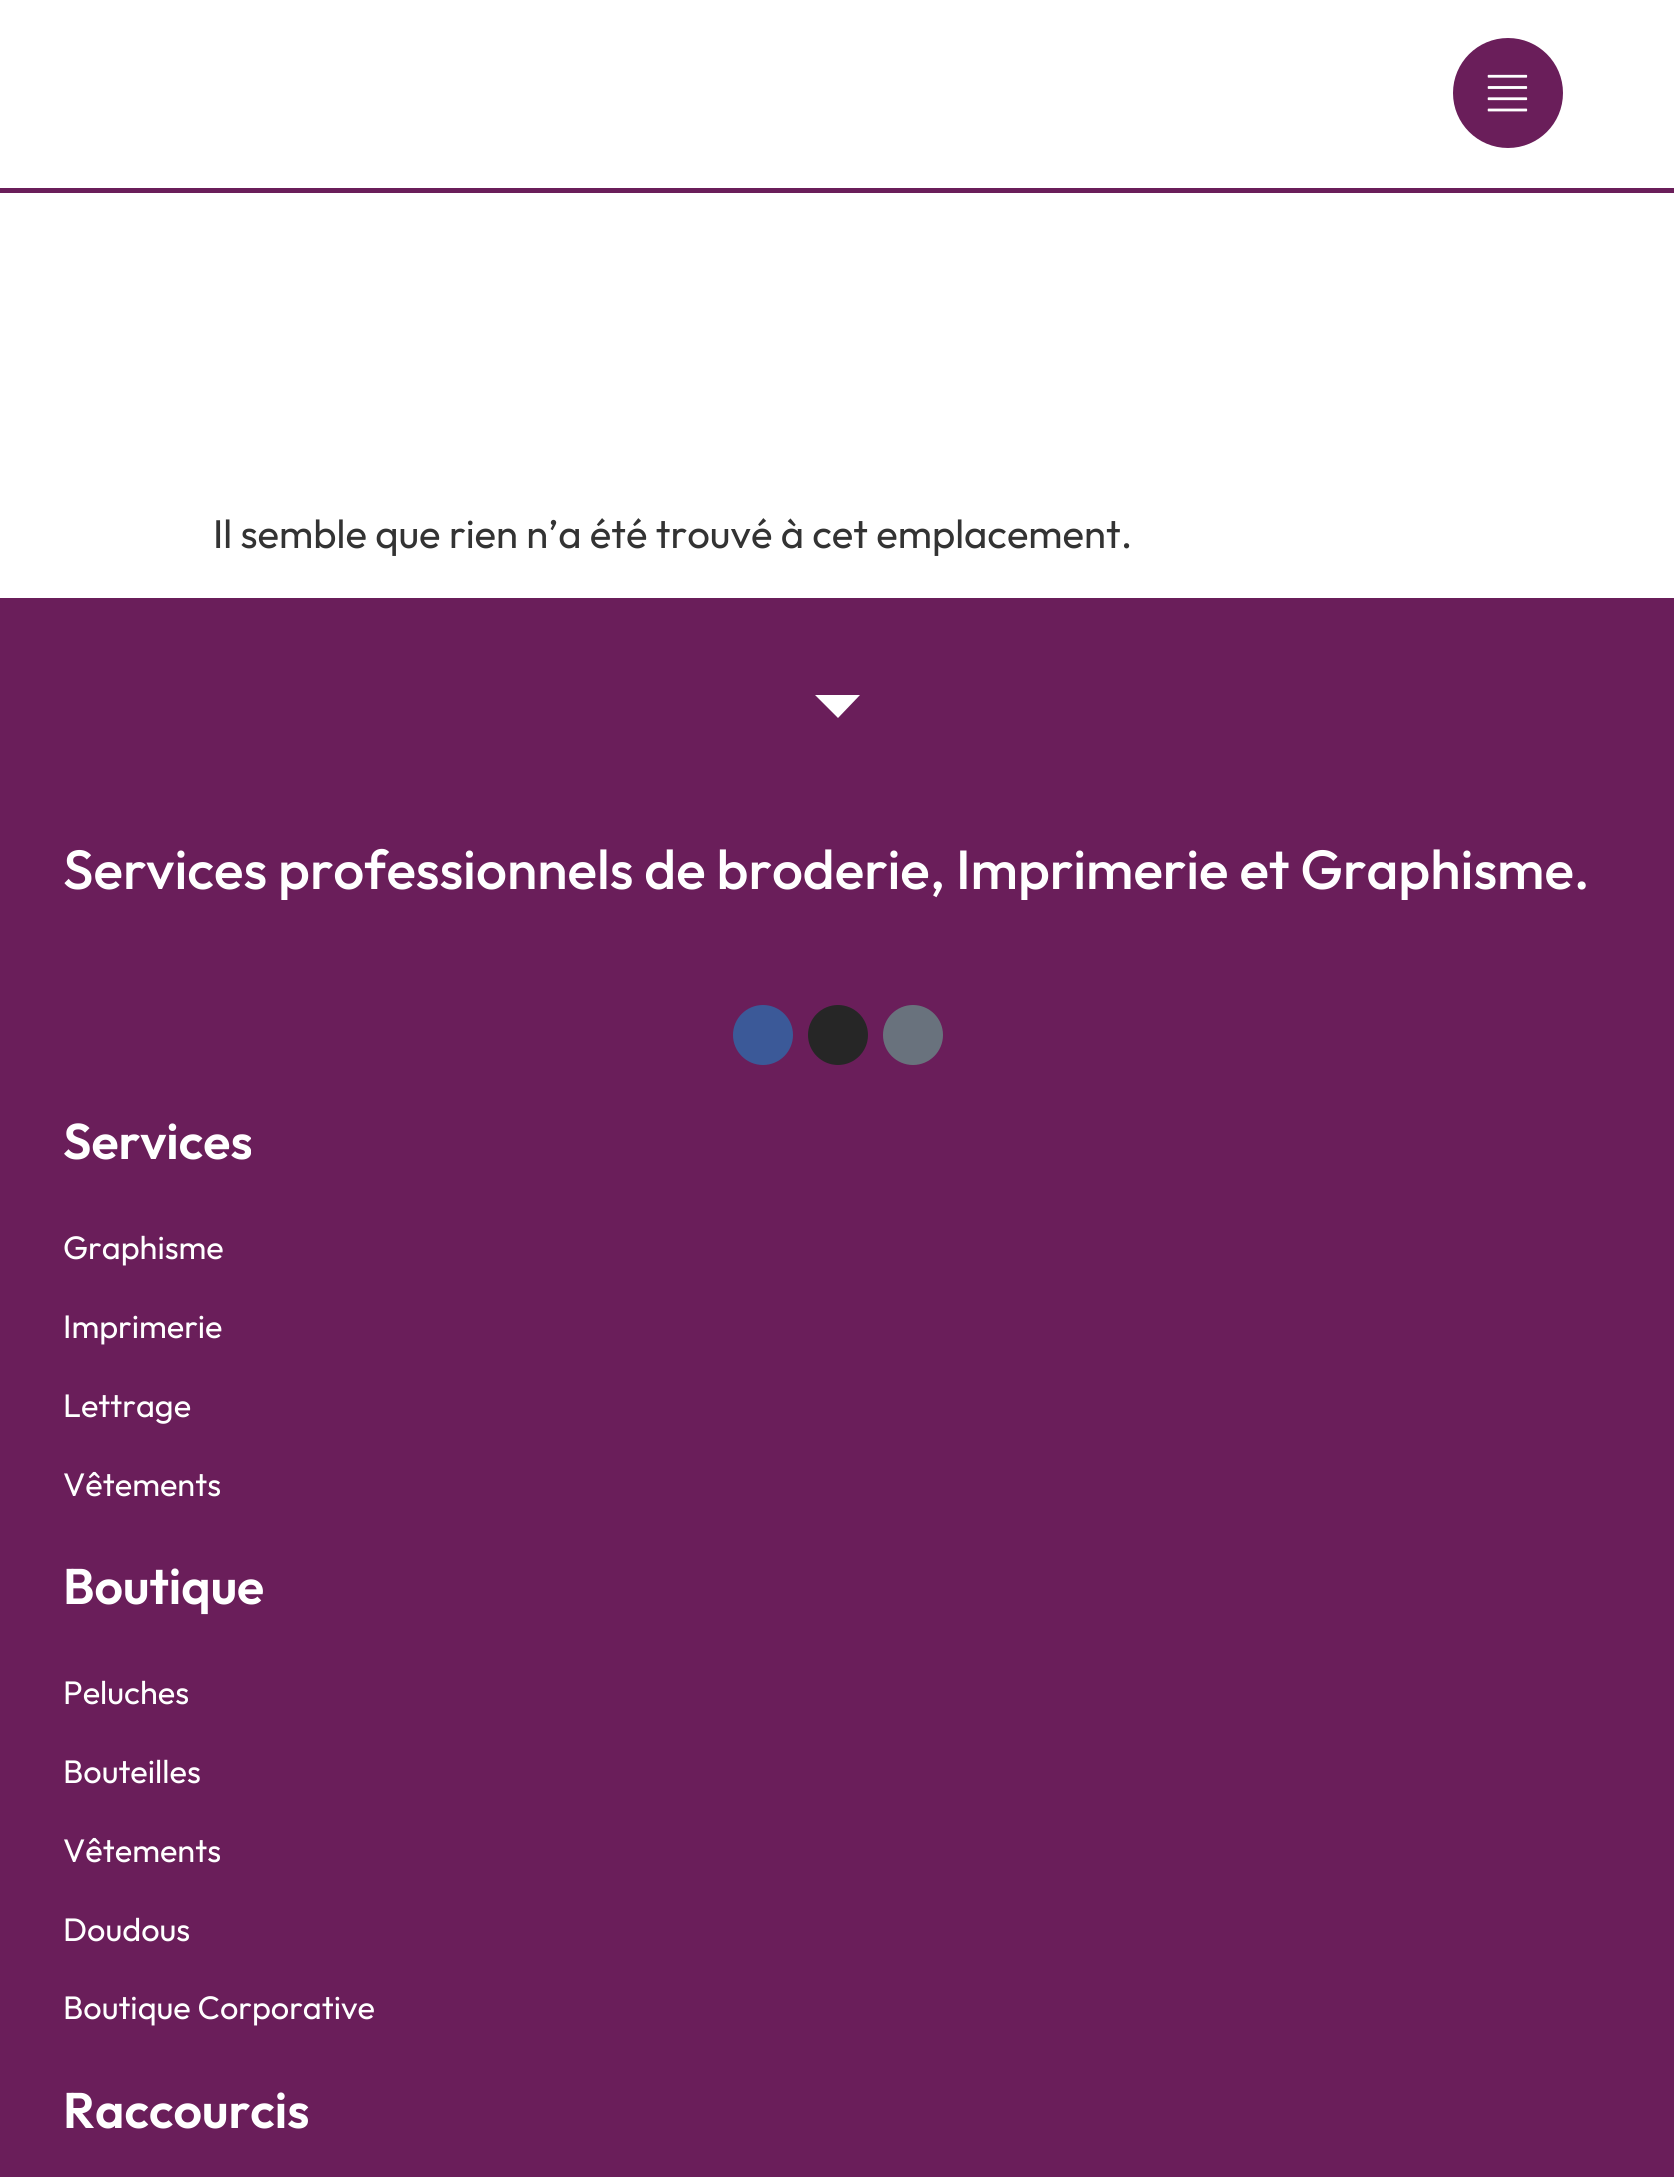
#include <cairo/cairo.h>
#include <math.h>
#include <stddef.h>

typedef struct { double x, y; const char *s; } line_t;
static cairo_t *cr;

static void rgb(unsigned color)
{
	cairo_set_source_rgb(cr, (color >> 16) / 255.0, (color >> 8 & 255) / 255.0, (color & 255) / 255.0);
}

static void image(const char *path, double x, double y, double w, double h)
{
	cairo_surface_t *image = cairo_image_surface_create_from_png(path);
	cairo_save(cr);
	cairo_set_source_surface(cr, image, x, y);
	cairo_rectangle(cr, x, y, w, h);
	cairo_fill(cr);
	cairo_restore(cr);
	cairo_surface_destroy(image);
}

int main(void) {
	cairo_surface_t *surface = cairo_image_surface_create(CAIRO_FORMAT_RGB24, 1674, 2177);
	cr = cairo_create(surface);
	cairo_font_options_t *options = cairo_font_options_create();
	cairo_font_options_set_hint_metrics(options, CAIRO_HINT_METRICS_OFF);
	cairo_font_options_set_hint_style(options, CAIRO_HINT_STYLE_NONE);
	cairo_set_font_options(cr, options);
	cairo_set_miter_limit(cr, 4);
	rgb(0xffffff);
	cairo_paint(cr);
	rgb(0x6a1e5a);
	cairo_rectangle(cr, 0, 188, 1674, 5);
	cairo_fill(cr);
	cairo_arc(cr, 1508, 93, 55, 0, 2 * M_PI);
	cairo_fill(cr);
	image("img/1.png", 1487, 74, 41, 38);
	cairo_rectangle(cr, 0, 598, 1674, 1579);
	cairo_fill(cr);
	rgb(0xffffff);
	cairo_new_path(cr);
	cairo_move_to(cr, 838, 718);
	cairo_line_to(cr, 815, 695);
	cairo_line_to(cr, 860, 695);
	cairo_close_path(cr);
	cairo_fill(cr);
	rgb(0x3b5998);
	cairo_arc(cr, 763, 1035, 30, 0, 2 * M_PI);
	cairo_fill(cr);
	rgb(0x262626);
	cairo_arc(cr, 838, 1035, 30, 0, 2 * M_PI);
	cairo_fill(cr);
	rgb(0x69727d);
	cairo_arc(cr, 913, 1035, 30, 0, 2 * M_PI);
	cairo_fill(cr);
	cairo_select_font_face(cr, "Outfit", CAIRO_FONT_SLANT_NORMAL, CAIRO_FONT_WEIGHT_NORMAL);
	cairo_set_font_size(cr, 40);
	rgb(0x333333);
	cairo_move_to(cr, 213, 548);
	cairo_show_text(cr, "Il semble que rien n’a été trouvé à cet emplacement.");
	cairo_select_font_face(cr, "Outfit Medium", CAIRO_FONT_SLANT_NORMAL, CAIRO_FONT_WEIGHT_NORMAL);
	cairo_set_font_size(cr, 55);
	rgb(0xffffff);
	cairo_move_to(cr, 63, 889);
	cairo_show_text(cr, "Services professionnels de broderie, Imprimerie et Graphisme.");
	cairo_select_font_face(cr, "Outfit SemiBold", CAIRO_FONT_SLANT_NORMAL, CAIRO_FONT_WEIGHT_NORMAL);
	cairo_set_font_size(cr, 50);
	cairo_move_to(cr, 63, 1159);
	cairo_show_text(cr, "Services");
	cairo_select_font_face(cr, "Outfit", CAIRO_FONT_SLANT_NORMAL, CAIRO_FONT_WEIGHT_NORMAL);
	cairo_set_font_size(cr, 32.5);
	{
		static const line_t items[] = {
			{63, 1259, "Graphisme"},
			{63, 1338, "Imprimerie"},
			{63, 1417, "Lettrage"},
			{63, 1496, "Vêtements"},
		};
		for (size_t i = 0; i < sizeof items / sizeof *items; i++) {
			cairo_move_to(cr, items[i].x, items[i].y);
			cairo_show_text(cr, items[i].s);
		}
	}
	cairo_select_font_face(cr, "Outfit SemiBold", CAIRO_FONT_SLANT_NORMAL, CAIRO_FONT_WEIGHT_NORMAL);
	cairo_set_font_size(cr, 50);
	cairo_move_to(cr, 63, 1604);
	cairo_show_text(cr, "Boutique");
	cairo_select_font_face(cr, "Outfit", CAIRO_FONT_SLANT_NORMAL, CAIRO_FONT_WEIGHT_NORMAL);
	cairo_set_font_size(cr, 32.5);
	{
		static const line_t items[] = {
			{63, 1704, "Peluches"},
			{63, 1783, "Bouteilles"},
			{63, 1862, "Vêtements"},
			{63, 1941, "Doudous"},
			{63, 2019, "Boutique Corporative"},
		};
		for (size_t i = 0; i < sizeof items / sizeof *items; i++) {
			cairo_move_to(cr, items[i].x, items[i].y);
			cairo_show_text(cr, items[i].s);
		}
	}
	cairo_select_font_face(cr, "Outfit SemiBold", CAIRO_FONT_SLANT_NORMAL, CAIRO_FONT_WEIGHT_NORMAL);
	cairo_set_font_size(cr, 50);
	cairo_move_to(cr, 63, 2128);
	cairo_show_text(cr, "Raccourcis");
	cairo_surface_write_to_png(surface, "page.png");
	cairo_font_options_destroy(options);
	cairo_destroy(cr);
	cairo_surface_destroy(surface);
	return 0;
}
